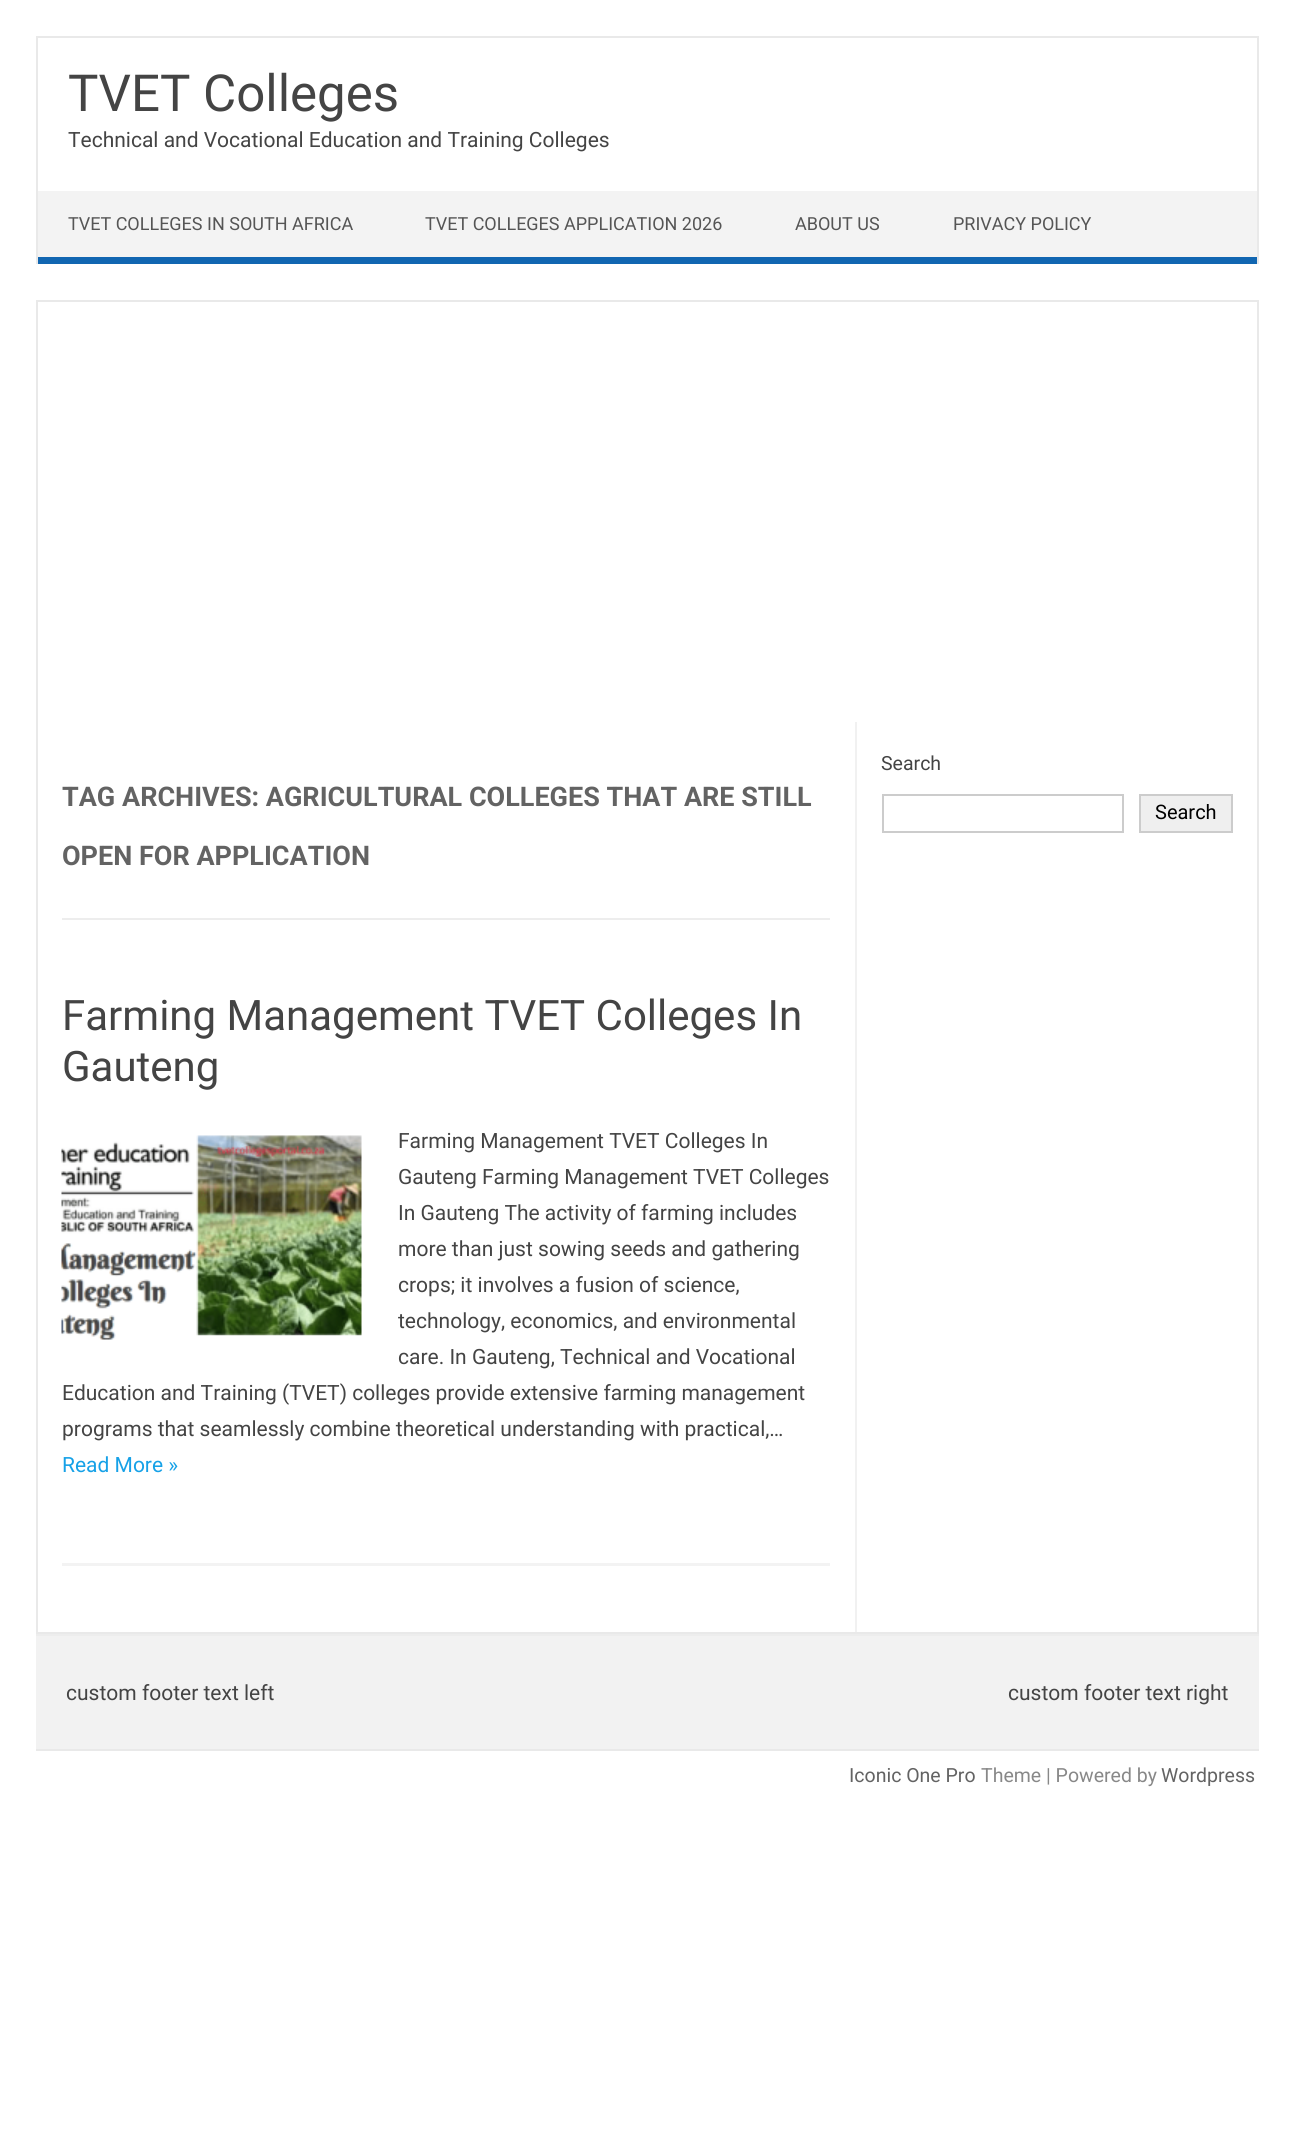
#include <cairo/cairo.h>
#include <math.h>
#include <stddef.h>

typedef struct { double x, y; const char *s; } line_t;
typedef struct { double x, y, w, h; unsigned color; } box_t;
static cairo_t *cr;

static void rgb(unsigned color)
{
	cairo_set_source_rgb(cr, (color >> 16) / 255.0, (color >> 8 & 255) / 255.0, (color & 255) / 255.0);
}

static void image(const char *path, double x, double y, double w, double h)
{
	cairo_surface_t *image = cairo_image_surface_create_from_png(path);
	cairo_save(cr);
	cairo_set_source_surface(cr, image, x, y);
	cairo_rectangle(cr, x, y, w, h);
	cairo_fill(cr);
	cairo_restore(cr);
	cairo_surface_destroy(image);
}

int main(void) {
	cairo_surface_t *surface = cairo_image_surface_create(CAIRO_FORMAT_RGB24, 1294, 2143);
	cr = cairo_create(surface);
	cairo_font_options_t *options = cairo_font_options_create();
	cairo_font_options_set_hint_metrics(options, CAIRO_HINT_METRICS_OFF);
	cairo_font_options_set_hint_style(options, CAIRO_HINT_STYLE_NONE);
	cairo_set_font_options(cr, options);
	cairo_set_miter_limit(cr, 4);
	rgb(0xffffff);
	cairo_paint(cr);
	{
		static const box_t items[] = {
			{36, 36, 1223, 2, 0xe9e9e9},
			{1257, 36, 2, 228, 0xe9e9e9},
			{36, 36, 2, 228, 0xe9e9e9},
			{38, 191, 1219, 66, 0xf3f3f3},
			{38, 257, 1219, 7, 0x1166b1},
		};
		for (size_t i = 0; i < sizeof items / sizeof *items; i++) {
			rgb(items[i].color);
			cairo_rectangle(cr, items[i].x, items[i].y, items[i].w, items[i].h);
			cairo_fill(cr);
		}
	}
	cairo_rectangle(cr, 37, 301, 1221, 1332);
	rgb(0xe9e9e9);
	cairo_stroke(cr);
	{
		static const box_t items[] = {
			{855, 722, 2, 910, 0xf1f1f1},
			{62, 918, 768, 2, 0xededed},
			{62, 1563, 768, 3, 0xf3f3f3},
		};
		for (size_t i = 0; i < sizeof items / sizeof *items; i++) {
			rgb(items[i].color);
			cairo_rectangle(cr, items[i].x, items[i].y, items[i].w, items[i].h);
			cairo_fill(cr);
		}
	}
	image("img/1.png", 61, 1135, 301, 205);
	cairo_rectangle(cr, 883, 795, 240, 37);
	rgb(0xcccccc);
	cairo_stroke(cr);
	rgb(0xefefef);
	cairo_rectangle(cr, 1140, 795, 92, 37);
	cairo_fill_preserve(cr);
	rgb(0xcccccc);
	cairo_stroke(cr);
	{
		static const box_t items[] = {
			{36, 1636, 1223, 113, 0xf2f2f2},
			{36, 1634, 1223, 2, 0xededed},
			{36, 1749, 1223, 2, 0xe9e9e9},
		};
		for (size_t i = 0; i < sizeof items / sizeof *items; i++) {
			rgb(items[i].color);
			cairo_rectangle(cr, items[i].x, items[i].y, items[i].w, items[i].h);
			cairo_fill(cr);
		}
	}
	cairo_select_font_face(cr, "Roboto", CAIRO_FONT_SLANT_NORMAL, CAIRO_FONT_WEIGHT_NORMAL);
	cairo_set_font_size(cr, 51);
	rgb(0x444444);
	cairo_move_to(cr, 68, 111);
	cairo_show_text(cr, "TVET Colleges");
	cairo_set_font_size(cr, 21);
	cairo_move_to(cr, 68, 147);
	cairo_show_text(cr, "Technical and Vocational Education and Training Colleges");
	cairo_set_font_size(cr, 18);
	rgb(0x555555);
	{
		static const line_t items[] = {
			{68, 230, "TVET COLLEGES IN SOUTH AFRICA"},
			{425, 230, "TVET COLLEGES APPLICATION 2026"},
			{795, 230, "ABOUT US"},
			{953, 230, "PRIVACY POLICY"},
		};
		for (size_t i = 0; i < sizeof items / sizeof *items; i++) {
			cairo_move_to(cr, items[i].x, items[i].y);
			cairo_show_text(cr, items[i].s);
		}
	}
	cairo_select_font_face(cr, "Roboto", CAIRO_FONT_SLANT_NORMAL, CAIRO_FONT_WEIGHT_BOLD);
	cairo_set_font_size(cr, 27);
	rgb(0x636363);
	cairo_move_to(cr, 62, 806);
	cairo_show_text(cr, "TAG ARCHIVES: AGRICULTURAL COLLEGES THAT ARE STILL");
	cairo_move_to(cr, 62, 865);
	cairo_show_text(cr, "OPEN FOR APPLICATION");
	cairo_select_font_face(cr, "Roboto", CAIRO_FONT_SLANT_NORMAL, CAIRO_FONT_WEIGHT_NORMAL);
	cairo_set_font_size(cr, 42);
	rgb(0x444444);
	cairo_move_to(cr, 62, 1030);
	cairo_show_text(cr, "Farming Management TVET Colleges In");
	cairo_move_to(cr, 62, 1081);
	cairo_show_text(cr, "Gauteng");
	cairo_set_font_size(cr, 21);
	{
		static const line_t items[] = {
			{398, 1148, "Farming Management TVET Colleges In"},
			{398, 1184, "Gauteng Farming Management TVET Colleges"},
			{398, 1220, "In Gauteng The activity of farming includes"},
			{398, 1256, "more than just sowing seeds and gathering"},
			{398, 1292, "crops; it involves a fusion of science,"},
			{398, 1328, "technology, economics, and environmental"},
			{398, 1364, "care. In Gauteng, Technical and Vocational"},
			{62, 1400, "Education and Training (TVET) colleges provide extensive farming management"},
			{62, 1436, "programs that seamlessly combine theoretical understanding with practical,…"},
		};
		for (size_t i = 0; i < sizeof items / sizeof *items; i++) {
			cairo_move_to(cr, items[i].x, items[i].y);
			cairo_show_text(cr, items[i].s);
		}
	}
	rgb(0x16a1e7);
	cairo_move_to(cr, 62, 1472);
	cairo_show_text(cr, "Read More »");
	cairo_set_font_size(cr, 19.5);
	rgb(0x444444);
	cairo_move_to(cr, 881, 770);
	cairo_show_text(cr, "Search");
	cairo_set_font_size(cr, 20);
	rgb(0x000000);
	cairo_move_to(cr, 1155, 819);
	cairo_show_text(cr, "Search");
	cairo_set_font_size(cr, 21);
	rgb(0x444444);
	cairo_move_to(cr, 66, 1700);
	cairo_show_text(cr, "custom footer text left");
	cairo_move_to(cr, 1008, 1700);
	cairo_show_text(cr, "custom footer text right");
	cairo_set_font_size(cr, 19.5);
	rgb(0x636363);
	cairo_move_to(cr, 849, 1782);
	cairo_show_text(cr, "Iconic One Pro");
	rgb(0x888888);
	cairo_move_to(cr, 981, 1782);
	cairo_show_text(cr, "Theme | Powered by");
	rgb(0x636363);
	cairo_move_to(cr, 1161, 1782);
	cairo_show_text(cr, "Wordpress");
	cairo_surface_write_to_png(surface, "page.png");
	cairo_font_options_destroy(options);
	cairo_destroy(cr);
	cairo_surface_destroy(surface);
	return 0;
}
